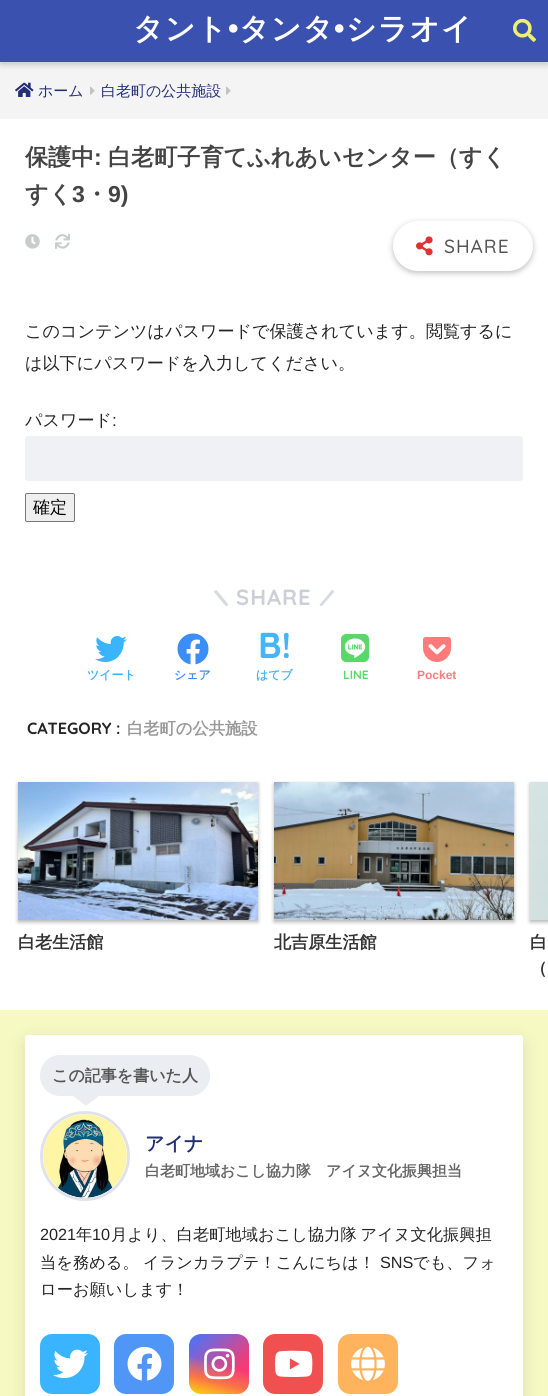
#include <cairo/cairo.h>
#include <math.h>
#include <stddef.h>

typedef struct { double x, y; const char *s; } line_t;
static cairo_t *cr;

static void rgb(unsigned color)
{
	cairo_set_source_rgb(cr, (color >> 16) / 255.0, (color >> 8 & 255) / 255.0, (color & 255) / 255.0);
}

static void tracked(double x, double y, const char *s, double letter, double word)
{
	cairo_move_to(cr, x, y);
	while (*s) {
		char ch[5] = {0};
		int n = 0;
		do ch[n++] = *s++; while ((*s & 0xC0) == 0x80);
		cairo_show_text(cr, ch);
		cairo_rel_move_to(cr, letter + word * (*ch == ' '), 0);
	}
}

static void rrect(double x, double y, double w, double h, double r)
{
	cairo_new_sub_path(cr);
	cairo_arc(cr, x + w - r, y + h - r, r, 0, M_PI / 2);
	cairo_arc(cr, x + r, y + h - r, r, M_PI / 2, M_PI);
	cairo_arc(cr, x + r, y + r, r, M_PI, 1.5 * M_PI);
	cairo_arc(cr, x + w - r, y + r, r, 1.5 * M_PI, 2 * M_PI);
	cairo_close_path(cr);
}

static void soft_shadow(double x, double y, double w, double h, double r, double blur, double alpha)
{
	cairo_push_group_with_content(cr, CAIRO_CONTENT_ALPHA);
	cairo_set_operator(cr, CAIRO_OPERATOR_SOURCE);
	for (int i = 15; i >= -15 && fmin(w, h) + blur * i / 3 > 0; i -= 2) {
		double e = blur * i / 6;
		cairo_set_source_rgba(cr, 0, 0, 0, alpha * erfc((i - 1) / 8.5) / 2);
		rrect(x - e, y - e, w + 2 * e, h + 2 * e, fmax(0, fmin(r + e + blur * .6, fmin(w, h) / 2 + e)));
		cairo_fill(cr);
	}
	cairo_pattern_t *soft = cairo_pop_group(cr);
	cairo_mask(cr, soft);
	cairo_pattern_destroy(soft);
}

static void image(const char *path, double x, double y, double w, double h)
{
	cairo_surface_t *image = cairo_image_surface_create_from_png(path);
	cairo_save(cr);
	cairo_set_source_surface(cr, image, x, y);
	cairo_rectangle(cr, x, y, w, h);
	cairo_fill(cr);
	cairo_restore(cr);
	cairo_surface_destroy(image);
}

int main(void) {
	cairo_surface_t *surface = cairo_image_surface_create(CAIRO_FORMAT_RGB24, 548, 1396);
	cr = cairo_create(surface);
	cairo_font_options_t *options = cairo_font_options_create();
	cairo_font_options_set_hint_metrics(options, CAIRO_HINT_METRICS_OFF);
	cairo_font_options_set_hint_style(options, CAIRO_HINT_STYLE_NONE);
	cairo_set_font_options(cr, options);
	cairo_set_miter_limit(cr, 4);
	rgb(0xffffff);
	cairo_paint(cr);
	rgb(0xf4f4f4);
	cairo_rectangle(cr, 0, 62, 548, 57);
	cairo_fill(cr);
	rgb(0x000000);
	soft_shadow(0, 3, 548, 62, 0, 3, 0.18);
	rgb(0x3a51af);
	cairo_rectangle(cr, 0, 0, 548, 62);
	cairo_fill(cr);
	image("img/1.png", 513, 18, 23, 24);
	image("img/2.png", 15, 82, 19, 15);
	image("img/3.png", 90, 86, 5, 9);
	image("img/3.png", 226, 86, 5, 9);
	image("img/4.png", 25, 234, 15, 15);
	image("img/5.png", 55, 233, 15, 16);
	rgb(0x000000);
	soft_shadow(393, 223, 140, 50, 25, 3, 0.25);
	rgb(0xffffff);
	rrect(393, 221, 140, 50, 25);
	cairo_fill(cr);
	image("img/6.png", 416, 236, 17, 20);
	rgb(0xeff1f5);
	rrect(25, 436, 498, 45, 3);
	cairo_fill(cr);
	rgb(0xefefef);
	rrect(25.5, 493.5, 49, 28, 1.5);
	cairo_fill_preserve(cr);
	rgb(0x767676);
	cairo_set_line_width(cr, 1);
	cairo_stroke(cr);
	rgb(0xd8dae1);
	cairo_new_path(cr);
	cairo_move_to(cr, 217, 590.5);
	cairo_line_to(cr, 226, 601.5);
	cairo_curve_to(cr, 226.5, 602.5, 229, 604.5, 227.5, 606);
	cairo_curve_to(cr, 226, 607, 224.5, 604.5, 223.5, 603.5);
	cairo_line_to(cr, 214, 592);
	cairo_curve_to(cr, 214, 590.5, 216, 589.5, 217, 590.5);
	cairo_close_path(cr);
	cairo_fill(cr);
	cairo_new_path(cr);
	cairo_move_to(cr, 320, 604);
	cairo_line_to(cr, 329.5, 593);
	cairo_curve_to(cr, 330, 592, 331.5, 589, 333.5, 590.5);
	cairo_curve_to(cr, 335, 592, 332.5, 594, 331.5, 595);
	cairo_line_to(cr, 322, 606);
	cairo_curve_to(cr, 320.5, 607, 319, 605, 320, 604);
	cairo_close_path(cr);
	cairo_fill(cr);
	image("img/7.png", 95, 636, 32, 26);
	image("img/8.png", 177, 633, 32, 32);
	image("img/9.png", 341, 634, 29, 28);
	image("img/10.png", 423, 637, 28, 25);
	rgb(0x000000);
	soft_shadow(18, 784, 240, 138, 0, 2, 0.3);
	image("img/11.png", 18, 782, 240, 138);
	soft_shadow(274, 784, 240, 138, 0, 2, 0.3);
	image("img/12.png", 274, 782, 240, 138);
	soft_shadow(530, 784, 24, 138, 0, 2, 0.3);
	image("img/13.png", 530, 782, 18, 138);
	rgb(0xf7f9c2);
	cairo_rectangle(cr, 0, 1010, 548, 386);
	cairo_fill(cr);
	rgb(0x697383);
	soft_shadow(30, 1045, 488, 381, 0, 10, 0.35);
	rgb(0xffffff);
	rrect(25, 1035, 498, 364, 3);
	cairo_fill(cr);
	rgb(0xeaedf2);
	rrect(40, 1055, 170, 41, 20);
	cairo_fill(cr);
	cairo_new_path(cr);
	cairo_move_to(cr, 73, 1096);
	cairo_line_to(cr, 99, 1096);
	cairo_line_to(cr, 86, 1106);
	cairo_close_path(cr);
	cairo_fill(cr);
	cairo_arc(cr, 85, 1156, 43.5, 0, 2 * M_PI);
	rgb(0xdfe2e8);
	cairo_set_line_width(cr, 3);
	cairo_stroke(cr);
	image("img/14.png", 43, 1114, 84, 84);
	rgb(0x3ab4ff);
	rrect(40, 1334, 60, 60, 12);
	cairo_fill(cr);
	image("img/15.png", 53, 1349, 35, 30);
	rgb(0x4f96f6);
	rrect(114, 1334, 60, 60, 12);
	cairo_fill(cr);
	image("img/16.png", 127, 1346, 35, 35);
	image("img/17.png", 189, 1334, 60, 60);
	image("img/18.png", 204, 1348, 31, 32);
	rgb(0xf0504f);
	rrect(263, 1334, 60, 60, 12);
	cairo_fill(cr);
	image("img/19.png", 275, 1350, 38, 27);
	rgb(0xffb35d);
	rrect(338, 1334, 60, 60, 12);
	cairo_fill(cr);
	image("img/20.png", 351, 1347, 34, 34);
	cairo_select_font_face(cr, "WenQuanYi Zen Hei", CAIRO_FONT_SLANT_NORMAL, CAIRO_FONT_WEIGHT_BOLD);
	cairo_set_font_size(cr, 30);
	rgb(0xffffff);
	tracked(133, 39, "タント", 1, 0);
	cairo_select_font_face(cr, "Quicksand", CAIRO_FONT_SLANT_NORMAL, CAIRO_FONT_WEIGHT_BOLD);
	tracked(228, 39, "•", 1, 0);
	cairo_select_font_face(cr, "WenQuanYi Zen Hei", CAIRO_FONT_SLANT_NORMAL, CAIRO_FONT_WEIGHT_BOLD);
	tracked(239, 39, "タンタ", 1, 0);
	cairo_select_font_face(cr, "Quicksand", CAIRO_FONT_SLANT_NORMAL, CAIRO_FONT_WEIGHT_BOLD);
	tracked(334, 39, "•", 1, 0);
	cairo_select_font_face(cr, "WenQuanYi Zen Hei", CAIRO_FONT_SLANT_NORMAL, CAIRO_FONT_WEIGHT_BOLD);
	tracked(346, 39, "シラオイ", 1, 0);
	cairo_select_font_face(cr, "WenQuanYi Zen Hei Medium", CAIRO_FONT_SLANT_NORMAL, CAIRO_FONT_WEIGHT_NORMAL);
	cairo_set_font_size(cr, 15);
	rgb(0x242f75);
	cairo_move_to(cr, 38, 96);
	cairo_show_text(cr, "ホーム");
	cairo_move_to(cr, 101, 96);
	cairo_show_text(cr, "白老町の公共施設");
	cairo_select_font_face(cr, "WenQuanYi Zen Hei", CAIRO_FONT_SLANT_NORMAL, CAIRO_FONT_WEIGHT_BOLD);
	cairo_set_font_size(cr, 23.1);
	rgb(0x444444);
	cairo_move_to(cr, 25, 165);
	cairo_show_text(cr, "保護中");
	cairo_select_font_face(cr, "Liberation Sans", CAIRO_FONT_SLANT_NORMAL, CAIRO_FONT_WEIGHT_BOLD);
	cairo_move_to(cr, 94, 165);
	cairo_show_text(cr, ":");
	cairo_select_font_face(cr, "WenQuanYi Zen Hei", CAIRO_FONT_SLANT_NORMAL, CAIRO_FONT_WEIGHT_BOLD);
	cairo_move_to(cr, 108, 165);
	cairo_show_text(cr, "白老町子育てふれあいセンター（すく");
	cairo_move_to(cr, 25, 202);
	cairo_show_text(cr, "すく");
	cairo_select_font_face(cr, "Liberation Sans", CAIRO_FONT_SLANT_NORMAL, CAIRO_FONT_WEIGHT_BOLD);
	cairo_move_to(cr, 72, 202);
	cairo_show_text(cr, "3");
	cairo_select_font_face(cr, "WenQuanYi Zen Hei", CAIRO_FONT_SLANT_NORMAL, CAIRO_FONT_WEIGHT_BOLD);
	cairo_move_to(cr, 85, 202);
	cairo_show_text(cr, "・");
	cairo_select_font_face(cr, "Liberation Sans", CAIRO_FONT_SLANT_NORMAL, CAIRO_FONT_WEIGHT_BOLD);
	cairo_move_to(cr, 108, 202);
	cairo_show_text(cr, "9)");
	cairo_select_font_face(cr, "Quicksand Medium", CAIRO_FONT_SLANT_NORMAL, CAIRO_FONT_WEIGHT_NORMAL);
	cairo_set_font_size(cr, 19);
	rgb(0x555555);
	tracked(444, 253, "SHARE", 1, 0);
	cairo_select_font_face(cr, "WenQuanYi Zen Hei Medium", CAIRO_FONT_SLANT_NORMAL, CAIRO_FONT_WEIGHT_NORMAL);
	cairo_set_font_size(cr, 17.1);
	rgb(0x252525);
	{
		static const line_t items[] = {
			{25, 337, "このコンテンツはパスワードで保護されています。閲覧するに"},
			{25, 369, "は以下にパスワードを入力してください。"},
			{25, 426, "パスワード"},
		};
		for (size_t i = 0; i < sizeof items / sizeof *items; i++) {
			cairo_move_to(cr, items[i].x, items[i].y);
			cairo_show_text(cr, items[i].s);
		}
	}
	cairo_select_font_face(cr, "Liberation Sans", CAIRO_FONT_SLANT_NORMAL, CAIRO_FONT_WEIGHT_NORMAL);
	cairo_move_to(cr, 112, 426);
	cairo_show_text(cr, ":");
	cairo_select_font_face(cr, "WenQuanYi Zen Hei Medium", CAIRO_FONT_SLANT_NORMAL, CAIRO_FONT_WEIGHT_NORMAL);
	rgb(0x000000);
	cairo_move_to(cr, 33, 513);
	cairo_show_text(cr, "確定");
	cairo_select_font_face(cr, "Quicksand", CAIRO_FONT_SLANT_NORMAL, CAIRO_FONT_WEIGHT_BOLD);
	cairo_set_font_size(cr, 22);
	rgb(0xcccfd7);
	tracked(236, 605, "SHARE", 1, 0);
	cairo_select_font_face(cr, "WenQuanYi Zen Hei", CAIRO_FONT_SLANT_NORMAL, CAIRO_FONT_WEIGHT_BOLD);
	cairo_set_font_size(cr, 12);
	rgb(0x3ab4ff);
	cairo_move_to(cr, 87, 679);
	cairo_show_text(cr, "ツイート");
	rgb(0x3b8df7);
	cairo_move_to(cr, 174, 679);
	cairo_show_text(cr, "シェア");
	cairo_select_font_face(cr, "Quicksand", CAIRO_FONT_SLANT_NORMAL, CAIRO_FONT_WEIGHT_BOLD);
	cairo_set_font_size(cr, 36);
	rgb(0x45b5f7);
	cairo_move_to(cr, 258, 658);
	cairo_show_text(cr, "B!");
	cairo_select_font_face(cr, "WenQuanYi Zen Hei", CAIRO_FONT_SLANT_NORMAL, CAIRO_FONT_WEIGHT_BOLD);
	cairo_set_font_size(cr, 12);
	cairo_move_to(cr, 256, 679);
	cairo_show_text(cr, "はてブ");
	cairo_select_font_face(cr, "Quicksand", CAIRO_FONT_SLANT_NORMAL, CAIRO_FONT_WEIGHT_BOLD);
	rgb(0x59d869);
	cairo_move_to(cr, 343, 679);
	cairo_show_text(cr, "LINE");
	cairo_select_font_face(cr, "Liberation Sans", CAIRO_FONT_SLANT_NORMAL, CAIRO_FONT_WEIGHT_BOLD);
	rgb(0xff7b7b);
	cairo_move_to(cr, 417, 679);
	cairo_show_text(cr, "Pocket");
	cairo_select_font_face(cr, "Quicksand", CAIRO_FONT_SLANT_NORMAL, CAIRO_FONT_WEIGHT_BOLD);
	cairo_set_font_size(cr, 16.25);
	rgb(0x252525);
	cairo_move_to(cr, 27, 734);
	cairo_show_text(cr, "CATEGORY :");
	cairo_select_font_face(cr, "WenQuanYi Zen Hei", CAIRO_FONT_SLANT_NORMAL, CAIRO_FONT_WEIGHT_BOLD);
	rgb(0x999999);
	cairo_move_to(cr, 127, 734);
	cairo_show_text(cr, "白老町の公共施設");
	cairo_set_font_size(cr, 17.1);
	rgb(0x333333);
	{
		static const line_t items[] = {
			{18, 948, "白老生活館"},
			{274, 948, "北吉原生活館"},
			{530, 948, "白"},
			{530, 974, "（"},
		};
		for (size_t i = 0; i < sizeof items / sizeof *items; i++) {
			cairo_move_to(cr, items[i].x, items[i].y);
			cairo_show_text(cr, items[i].s);
		}
	}
	cairo_set_font_size(cr, 16);
	rgb(0x555555);
	cairo_move_to(cr, 52, 1081);
	cairo_show_text(cr, "この記事を書いた人");
	cairo_set_font_size(cr, 19);
	rgb(0x242f75);
	cairo_move_to(cr, 145, 1150);
	cairo_show_text(cr, "アイナ");
	cairo_set_font_size(cr, 15);
	rgb(0x686868);
	cairo_move_to(cr, 145, 1176);
	cairo_show_text(cr, "白老町地域おこし協力隊　アイヌ文化振興担当");
	cairo_select_font_face(cr, "Liberation Sans", CAIRO_FONT_SLANT_NORMAL, CAIRO_FONT_WEIGHT_NORMAL);
	cairo_set_font_size(cr, 16.25);
	rgb(0x252525);
	cairo_move_to(cr, 40, 1240);
	cairo_show_text(cr, "2021");
	cairo_select_font_face(cr, "WenQuanYi Zen Hei Medium", CAIRO_FONT_SLANT_NORMAL, CAIRO_FONT_WEIGHT_NORMAL);
	cairo_move_to(cr, 76, 1240);
	cairo_show_text(cr, "年");
	cairo_select_font_face(cr, "Liberation Sans", CAIRO_FONT_SLANT_NORMAL, CAIRO_FONT_WEIGHT_NORMAL);
	cairo_move_to(cr, 92, 1240);
	cairo_show_text(cr, "10");
	cairo_select_font_face(cr, "WenQuanYi Zen Hei Medium", CAIRO_FONT_SLANT_NORMAL, CAIRO_FONT_WEIGHT_NORMAL);
	tracked(111, 1240, "月より、白老町地域おこし協力隊 アイヌ文化振興担", 0, -1);
	cairo_move_to(cr, 40, 1268);
	cairo_show_text(cr, "当を務める。");
	cairo_move_to(cr, 143, 1268);
	cairo_show_text(cr, "イランカラプテ！こんにちは！");
	cairo_select_font_face(cr, "Liberation Sans", CAIRO_FONT_SLANT_NORMAL, CAIRO_FONT_WEIGHT_NORMAL);
	cairo_move_to(cr, 380, 1268);
	cairo_show_text(cr, "SNS");
	cairo_select_font_face(cr, "WenQuanYi Zen Hei Medium", CAIRO_FONT_SLANT_NORMAL, CAIRO_FONT_WEIGHT_NORMAL);
	cairo_move_to(cr, 413, 1268);
	cairo_show_text(cr, "でも、フォ");
	cairo_move_to(cr, 40, 1295);
	cairo_show_text(cr, "ローお願いします！");
	cairo_surface_write_to_png(surface, "page.png");
	cairo_font_options_destroy(options);
	cairo_destroy(cr);
	cairo_surface_destroy(surface);
	return 0;
}
